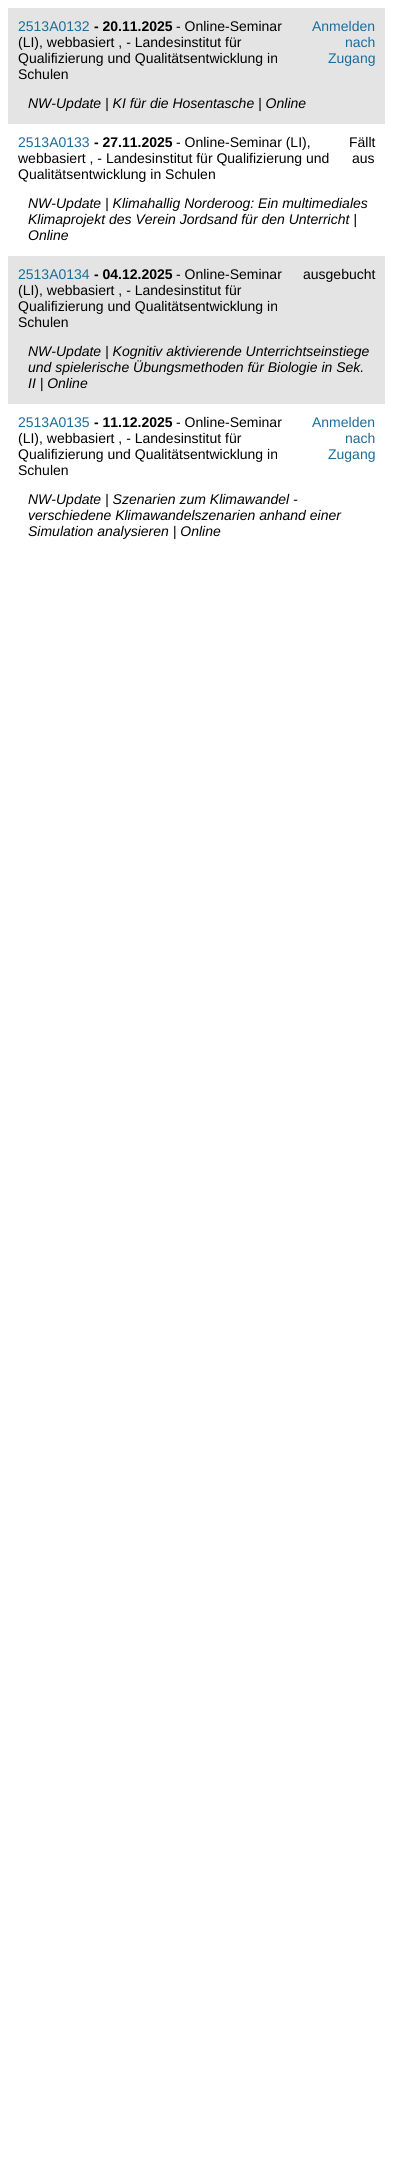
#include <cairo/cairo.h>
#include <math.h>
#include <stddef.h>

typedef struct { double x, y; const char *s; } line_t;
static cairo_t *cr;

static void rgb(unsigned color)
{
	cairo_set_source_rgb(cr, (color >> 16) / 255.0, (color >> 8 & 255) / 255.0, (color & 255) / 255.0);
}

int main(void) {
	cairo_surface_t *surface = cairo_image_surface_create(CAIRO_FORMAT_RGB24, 393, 2175);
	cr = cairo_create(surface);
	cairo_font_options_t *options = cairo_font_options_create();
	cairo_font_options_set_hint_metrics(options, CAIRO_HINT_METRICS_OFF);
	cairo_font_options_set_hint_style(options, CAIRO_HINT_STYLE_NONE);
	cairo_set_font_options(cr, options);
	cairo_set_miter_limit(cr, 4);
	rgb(0xffffff);
	cairo_paint(cr);
	rgb(0xe4e4e4);
	cairo_rectangle(cr, 8, 8, 377, 116);
	cairo_fill(cr);
	cairo_rectangle(cr, 8, 256, 377, 148);
	cairo_fill(cr);
	cairo_select_font_face(cr, "Liberation Sans", CAIRO_FONT_SLANT_NORMAL, CAIRO_FONT_WEIGHT_NORMAL);
	cairo_set_font_size(cr, 14);
	rgb(0x1c6c9a);
	cairo_move_to(cr, 18, 31);
	cairo_show_text(cr, "2513A0132");
	cairo_select_font_face(cr, "Liberation Sans", CAIRO_FONT_SLANT_NORMAL, CAIRO_FONT_WEIGHT_BOLD);
	rgb(0x000000);
	cairo_move_to(cr, 94, 31);
	cairo_show_text(cr, "- 20.11.2025");
	cairo_select_font_face(cr, "Liberation Sans", CAIRO_FONT_SLANT_NORMAL, CAIRO_FONT_WEIGHT_NORMAL);
	{
		static const line_t items[] = {
			{176, 31, "- Online-Seminar"},
			{18, 47, "(LI), webbasiert , - Landesinstitut für"},
			{18, 63, "Qualifizierung und Qualitätsentwicklung in"},
			{18, 79, "Schulen"},
		};
		for (size_t i = 0; i < sizeof items / sizeof *items; i++) {
			cairo_move_to(cr, items[i].x, items[i].y);
			cairo_show_text(cr, items[i].s);
		}
	}
	rgb(0x1c6c9a);
	{
		static const line_t items[] = {
			{312, 31, "Anmelden"},
			{345, 47, "nach"},
			{328, 63, "Zugang"},
		};
		for (size_t i = 0; i < sizeof items / sizeof *items; i++) {
			cairo_move_to(cr, items[i].x, items[i].y);
			cairo_show_text(cr, items[i].s);
		}
	}
	cairo_select_font_face(cr, "Liberation Sans", CAIRO_FONT_SLANT_ITALIC, CAIRO_FONT_WEIGHT_NORMAL);
	rgb(0x000000);
	cairo_move_to(cr, 28, 108);
	cairo_show_text(cr, "NW-Update | KI für die Hosentasche | Online");
	cairo_select_font_face(cr, "Liberation Sans", CAIRO_FONT_SLANT_NORMAL, CAIRO_FONT_WEIGHT_NORMAL);
	rgb(0x1c6c9a);
	cairo_move_to(cr, 18, 147);
	cairo_show_text(cr, "2513A0133");
	cairo_select_font_face(cr, "Liberation Sans", CAIRO_FONT_SLANT_NORMAL, CAIRO_FONT_WEIGHT_BOLD);
	rgb(0x000000);
	cairo_move_to(cr, 94, 147);
	cairo_show_text(cr, "- 27.11.2025");
	cairo_select_font_face(cr, "Liberation Sans", CAIRO_FONT_SLANT_NORMAL, CAIRO_FONT_WEIGHT_NORMAL);
	{
		static const line_t items[] = {
			{176, 147, "- Online-Seminar (LI),"},
			{18, 163, "webbasiert , - Landesinstitut für Qualifizierung und"},
			{18, 179, "Qualitätsentwicklung in Schulen"},
			{349, 147, "Fällt"},
			{352, 163, "aus"},
		};
		for (size_t i = 0; i < sizeof items / sizeof *items; i++) {
			cairo_move_to(cr, items[i].x, items[i].y);
			cairo_show_text(cr, items[i].s);
		}
	}
	cairo_select_font_face(cr, "Liberation Sans", CAIRO_FONT_SLANT_ITALIC, CAIRO_FONT_WEIGHT_NORMAL);
	{
		static const line_t items[] = {
			{28, 208, "NW-Update | Klimahallig Norderoog: Ein multimediales"},
			{28, 224, "Klimaprojekt des Verein Jordsand für den Unterricht |"},
			{28, 240, "Online"},
		};
		for (size_t i = 0; i < sizeof items / sizeof *items; i++) {
			cairo_move_to(cr, items[i].x, items[i].y);
			cairo_show_text(cr, items[i].s);
		}
	}
	cairo_select_font_face(cr, "Liberation Sans", CAIRO_FONT_SLANT_NORMAL, CAIRO_FONT_WEIGHT_NORMAL);
	rgb(0x1c6c9a);
	cairo_move_to(cr, 18, 279);
	cairo_show_text(cr, "2513A0134");
	cairo_select_font_face(cr, "Liberation Sans", CAIRO_FONT_SLANT_NORMAL, CAIRO_FONT_WEIGHT_BOLD);
	rgb(0x000000);
	cairo_move_to(cr, 94, 279);
	cairo_show_text(cr, "- 04.12.2025");
	cairo_select_font_face(cr, "Liberation Sans", CAIRO_FONT_SLANT_NORMAL, CAIRO_FONT_WEIGHT_NORMAL);
	{
		static const line_t items[] = {
			{176, 279, "- Online-Seminar"},
			{18, 295, "(LI), webbasiert , - Landesinstitut für"},
			{18, 311, "Qualifizierung und Qualitätsentwicklung in"},
			{18, 327, "Schulen"},
			{303, 279, "ausgebucht"},
		};
		for (size_t i = 0; i < sizeof items / sizeof *items; i++) {
			cairo_move_to(cr, items[i].x, items[i].y);
			cairo_show_text(cr, items[i].s);
		}
	}
	cairo_select_font_face(cr, "Liberation Sans", CAIRO_FONT_SLANT_ITALIC, CAIRO_FONT_WEIGHT_NORMAL);
	{
		static const line_t items[] = {
			{28, 356, "NW-Update | Kognitiv aktivierende Unterrichtseinstiege"},
			{28, 372, "und spielerische Übungsmethoden für Biologie in Sek."},
			{28, 388, "II | Online"},
		};
		for (size_t i = 0; i < sizeof items / sizeof *items; i++) {
			cairo_move_to(cr, items[i].x, items[i].y);
			cairo_show_text(cr, items[i].s);
		}
	}
	cairo_select_font_face(cr, "Liberation Sans", CAIRO_FONT_SLANT_NORMAL, CAIRO_FONT_WEIGHT_NORMAL);
	rgb(0x1c6c9a);
	cairo_move_to(cr, 18, 427);
	cairo_show_text(cr, "2513A0135");
	cairo_select_font_face(cr, "Liberation Sans", CAIRO_FONT_SLANT_NORMAL, CAIRO_FONT_WEIGHT_BOLD);
	rgb(0x000000);
	cairo_move_to(cr, 94, 427);
	cairo_show_text(cr, "- 11.12.2025");
	cairo_select_font_face(cr, "Liberation Sans", CAIRO_FONT_SLANT_NORMAL, CAIRO_FONT_WEIGHT_NORMAL);
	{
		static const line_t items[] = {
			{176, 427, "- Online-Seminar"},
			{18, 443, "(LI), webbasiert , - Landesinstitut für"},
			{18, 459, "Qualifizierung und Qualitätsentwicklung in"},
			{18, 475, "Schulen"},
		};
		for (size_t i = 0; i < sizeof items / sizeof *items; i++) {
			cairo_move_to(cr, items[i].x, items[i].y);
			cairo_show_text(cr, items[i].s);
		}
	}
	rgb(0x1c6c9a);
	{
		static const line_t items[] = {
			{312, 427, "Anmelden"},
			{345, 443, "nach"},
			{328, 459, "Zugang"},
		};
		for (size_t i = 0; i < sizeof items / sizeof *items; i++) {
			cairo_move_to(cr, items[i].x, items[i].y);
			cairo_show_text(cr, items[i].s);
		}
	}
	cairo_select_font_face(cr, "Liberation Sans", CAIRO_FONT_SLANT_ITALIC, CAIRO_FONT_WEIGHT_NORMAL);
	rgb(0x000000);
	{
		static const line_t items[] = {
			{28, 504, "NW-Update | Szenarien zum Klimawandel -"},
			{28, 520, "verschiedene Klimawandelszenarien anhand einer"},
			{28, 536, "Simulation analysieren | Online"},
		};
		for (size_t i = 0; i < sizeof items / sizeof *items; i++) {
			cairo_move_to(cr, items[i].x, items[i].y);
			cairo_show_text(cr, items[i].s);
		}
	}
	cairo_surface_write_to_png(surface, "page.png");
	cairo_font_options_destroy(options);
	cairo_destroy(cr);
	cairo_surface_destroy(surface);
	return 0;
}
